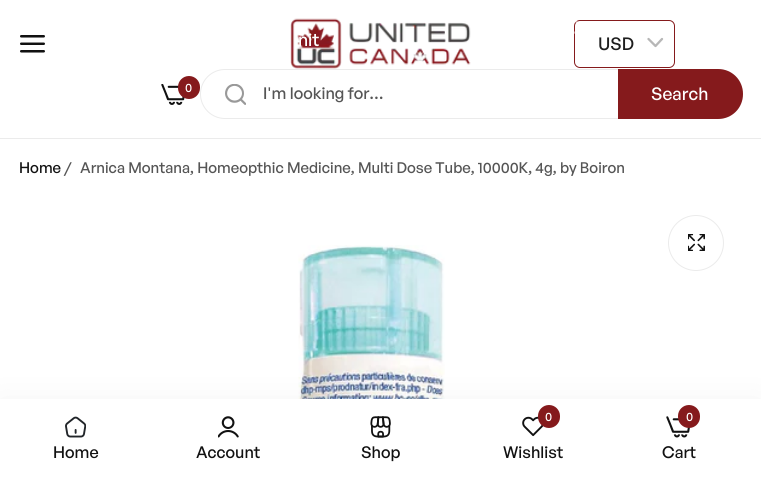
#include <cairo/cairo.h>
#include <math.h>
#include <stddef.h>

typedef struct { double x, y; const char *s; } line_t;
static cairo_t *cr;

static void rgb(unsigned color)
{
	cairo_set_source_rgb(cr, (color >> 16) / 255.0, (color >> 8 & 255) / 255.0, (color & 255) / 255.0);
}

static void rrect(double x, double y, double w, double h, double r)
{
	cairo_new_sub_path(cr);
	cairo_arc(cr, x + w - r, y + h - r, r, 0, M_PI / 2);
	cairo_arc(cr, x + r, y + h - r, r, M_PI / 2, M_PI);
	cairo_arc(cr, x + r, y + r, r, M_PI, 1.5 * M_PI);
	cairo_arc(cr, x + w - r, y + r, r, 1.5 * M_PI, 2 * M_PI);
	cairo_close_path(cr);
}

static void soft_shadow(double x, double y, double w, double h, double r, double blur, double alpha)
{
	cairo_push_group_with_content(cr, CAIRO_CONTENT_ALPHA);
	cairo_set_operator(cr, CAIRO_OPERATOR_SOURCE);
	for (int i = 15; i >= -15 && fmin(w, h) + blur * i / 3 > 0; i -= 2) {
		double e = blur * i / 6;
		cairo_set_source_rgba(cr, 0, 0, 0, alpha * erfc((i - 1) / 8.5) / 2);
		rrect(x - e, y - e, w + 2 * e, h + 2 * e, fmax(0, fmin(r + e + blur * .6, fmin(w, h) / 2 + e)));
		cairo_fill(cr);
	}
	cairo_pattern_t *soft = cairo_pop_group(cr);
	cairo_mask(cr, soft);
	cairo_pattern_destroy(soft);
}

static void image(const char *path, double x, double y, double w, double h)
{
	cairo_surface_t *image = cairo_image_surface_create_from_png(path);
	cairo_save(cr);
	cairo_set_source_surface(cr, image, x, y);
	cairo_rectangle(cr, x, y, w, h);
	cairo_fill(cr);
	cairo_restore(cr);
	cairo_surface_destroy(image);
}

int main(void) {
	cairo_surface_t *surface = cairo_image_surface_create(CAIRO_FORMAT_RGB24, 761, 478);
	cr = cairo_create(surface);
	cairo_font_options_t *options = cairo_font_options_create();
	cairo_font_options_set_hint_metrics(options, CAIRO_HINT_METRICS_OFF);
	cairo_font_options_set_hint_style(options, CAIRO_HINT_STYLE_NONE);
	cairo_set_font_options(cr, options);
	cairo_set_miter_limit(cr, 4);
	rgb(0xffffff);
	cairo_paint(cr);
	rrect(574.5, 20.5, 100, 47, 5.5);
	rgb(0x851a1c);
	cairo_set_line_width(cr, 1);
	cairo_stroke(cr);
	image("img/1.png", 574, 21, 4, 13);
	rgb(0xebebeb);
	cairo_rectangle(cr, 0, 138, 761, 1);
	cairo_fill(cr);
	image("img/2.png", 20, 35, 25, 18);
	image("img/3.png", 290, 18, 181, 51);
	cairo_new_path(cr);
	cairo_move_to(cr, 648.5, 39);
	cairo_line_to(cr, 655.5, 46);
	cairo_line_to(cr, 662, 39);
	rgb(0xb7b7b7);
	cairo_set_line_width(cr, 2.3);
	cairo_set_line_cap(cr, CAIRO_LINE_CAP_ROUND);
	cairo_set_line_join(cr, CAIRO_LINE_JOIN_ROUND);
	cairo_stroke(cr);
	image("img/4.png", 161, 84, 24, 21);
	rgb(0x851a1c);
	rrect(178, 76, 22, 23, 11);
	cairo_fill(cr);
	rrect(200.5, 69.5, 542, 49, 24.5);
	rgb(0xebebeb);
	cairo_set_line_width(cr, 1);
	cairo_set_line_cap(cr, CAIRO_LINE_CAP_BUTT);
	cairo_set_line_join(cr, CAIRO_LINE_JOIN_MITER);
	cairo_stroke(cr);
	image("img/5.png", 225, 84, 21, 21);
	rgb(0x851a1c);
	cairo_new_path(cr);
	cairo_move_to(cr, 618, 69);
	cairo_line_to(cr, 718, 69);
	cairo_curve_to(cr, 732, 69, 743, 80, 743, 94);
	cairo_curve_to(cr, 743, 108, 732, 119, 718, 119);
	cairo_line_to(cr, 618, 119);
	cairo_close_path(cr);
	cairo_fill(cr);
	image("img/6.png", 298, 245, 147, 154);
	cairo_arc(cr, 696, 243, 27.5, 0, 2 * M_PI);
	rgb(0xebebeb);
	cairo_stroke(cr);
	image("img/7.png", 688, 234, 17, 17);
	rgb(0x000000);
	soft_shadow(0, 405, 761, 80, 0, 19, 0.06);
	rgb(0xffffff);
	cairo_rectangle(cr, 0, 399, 761, 79);
	cairo_fill(cr);
	image("img/8.png", 65, 416, 21, 22);
	image("img/9.png", 218, 416, 21, 22);
	image("img/10.png", 370, 416, 21, 22);
	image("img/11.png", 522, 416, 22, 21);
	rgb(0x851a1c);
	rrect(538, 405, 22, 23, 11);
	cairo_fill(cr);
	image("img/12.png", 666, 416, 24, 22);
	rrect(678, 405, 22, 23, 11);
	cairo_fill(cr);
	cairo_select_font_face(cr, "General Sans Medium", CAIRO_FONT_SLANT_NORMAL, CAIRO_FONT_WEIGHT_NORMAL);
	cairo_set_font_size(cr, 17.5);
	rgb(0xffffff);
	cairo_move_to(cr, 298, 46);
	cairo_show_text(cr, "nit");
	rgb(0x1e1e1e);
	cairo_move_to(cr, 598, 50);
	cairo_show_text(cr, "USD");
	cairo_set_font_size(cr, 12);
	rgb(0xffffff);
	cairo_move_to(cr, 185, 92);
	cairo_show_text(cr, "0");
	cairo_set_font_size(cr, 16.25);
	rgb(0x555555);
	cairo_move_to(cr, 263, 99);
	cairo_show_text(cr, "I'm looking for…");
	cairo_set_font_size(cr, 17.5);
	rgb(0xffffff);
	cairo_move_to(cr, 651, 100);
	cairo_show_text(cr, "Search");
	cairo_set_font_size(cr, 15);
	rgb(0x111111);
	cairo_move_to(cr, 19, 173);
	cairo_show_text(cr, "Home");
	rgb(0x555555);
	cairo_move_to(cr, 64, 173);
	cairo_show_text(cr, "/");
	cairo_move_to(cr, 80, 173);
	cairo_show_text(cr, "Arnica Montana, Homeopthic Medicine, Multi Dose Tube, 10000K, 4g, by Boiron");
	cairo_set_font_size(cr, 16.25);
	rgb(0x111111);
	{
		static const line_t items[] = {
			{53, 458, "Home"},
			{196, 458, "Account"},
			{361, 458, "Shop"},
		};
		for (size_t i = 0; i < sizeof items / sizeof *items; i++) {
			cairo_move_to(cr, items[i].x, items[i].y);
			cairo_show_text(cr, items[i].s);
		}
	}
	cairo_set_font_size(cr, 12);
	rgb(0xffffff);
	cairo_move_to(cr, 545, 421);
	cairo_show_text(cr, "0");
	cairo_set_font_size(cr, 16.25);
	rgb(0x111111);
	cairo_move_to(cr, 503, 458);
	cairo_show_text(cr, "Wishlist");
	cairo_set_font_size(cr, 12);
	rgb(0xffffff);
	cairo_move_to(cr, 686, 421);
	cairo_show_text(cr, "0");
	cairo_set_font_size(cr, 16.25);
	rgb(0x111111);
	cairo_move_to(cr, 662, 458);
	cairo_show_text(cr, "Cart");
	cairo_surface_write_to_png(surface, "page.png");
	cairo_font_options_destroy(options);
	cairo_destroy(cr);
	cairo_surface_destroy(surface);
	return 0;
}
